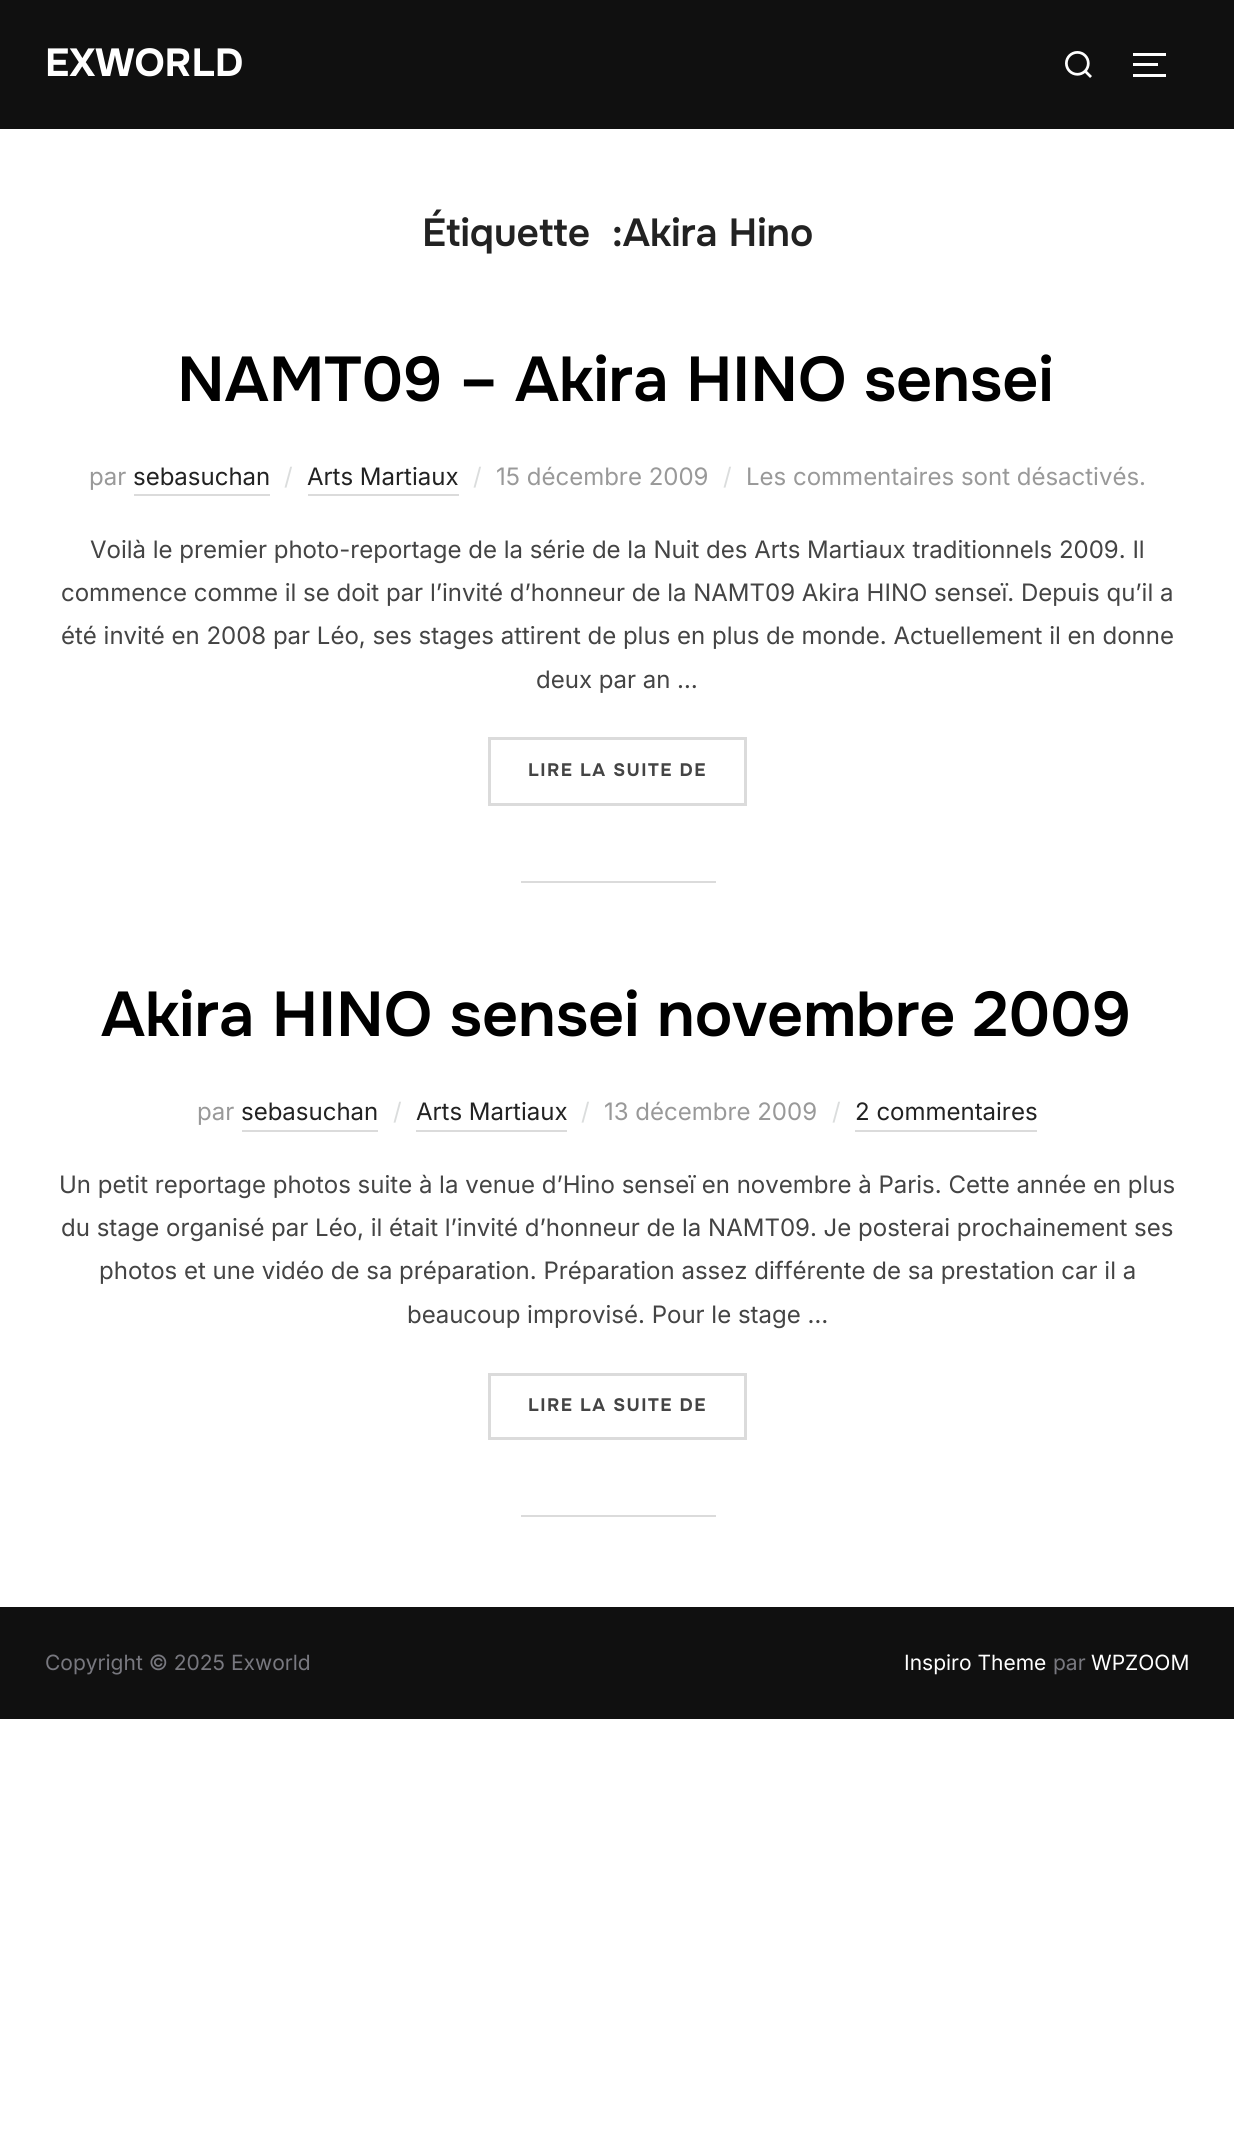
#include <cairo/cairo.h>
#include <math.h>
#include <stddef.h>

typedef struct { double x, y; const char *s; } line_t;
typedef struct { double x, y, w, h; unsigned color; } box_t;
static cairo_t *cr;

static void rgb(unsigned color)
{
	cairo_set_source_rgb(cr, (color >> 16) / 255.0, (color >> 8 & 255) / 255.0, (color & 255) / 255.0);
}

static void tracked(double x, double y, const char *s, double letter, double word)
{
	cairo_move_to(cr, x, y);
	while (*s) {
		char ch[5] = {0};
		int n = 0;
		do ch[n++] = *s++; while ((*s & 0xC0) == 0x80);
		cairo_show_text(cr, ch);
		cairo_rel_move_to(cr, letter + word * (*ch == ' '), 0);
	}
}

static void image(const char *path, double x, double y, double w, double h)
{
	cairo_surface_t *image = cairo_image_surface_create_from_png(path);
	cairo_save(cr);
	cairo_set_source_surface(cr, image, x, y);
	cairo_rectangle(cr, x, y, w, h);
	cairo_fill(cr);
	cairo_restore(cr);
	cairo_surface_destroy(image);
}

int main(void) {
	cairo_surface_t *surface = cairo_image_surface_create(CAIRO_FORMAT_RGB24, 1234, 2154);
	cr = cairo_create(surface);
	cairo_font_options_t *options = cairo_font_options_create();
	cairo_font_options_set_hint_metrics(options, CAIRO_HINT_METRICS_OFF);
	cairo_font_options_set_hint_style(options, CAIRO_HINT_STYLE_NONE);
	cairo_set_font_options(cr, options);
	cairo_set_miter_limit(cr, 4);
	rgb(0xffffff);
	cairo_paint(cr);
	rgb(0x101010);
	cairo_rectangle(cr, 0, 0, 1234, 129);
	cairo_fill(cr);
	image("img/1.png", 1065, 51, 27, 27);
	{
		static const box_t items[] = {
			{1133, 53, 33, 3, 0xffffff},
			{1133, 63, 25, 3, 0xffffff},
			{1133, 74, 33, 3, 0xffffff},
			{134, 494, 136, 2, 0xdbdbdb},
			{308, 494, 151, 2, 0xdbdbdb},
		};
		for (size_t i = 0; i < sizeof items / sizeof *items; i++) {
			rgb(items[i].color);
			cairo_rectangle(cr, items[i].x, items[i].y, items[i].w, items[i].h);
			cairo_fill(cr);
		}
	}
	cairo_rectangle(cr, 489.5, 738.5, 256, 66);
	cairo_set_line_width(cr, 3);
	cairo_stroke(cr);
	{
		static const box_t items[] = {
			{521, 881, 195, 2, 0xdbdbdb},
			{242, 1130, 136, 2, 0xdbdbdb},
			{416, 1130, 151, 2, 0xdbdbdb},
			{855, 1130, 182, 2, 0xdbdbdb},
		};
		for (size_t i = 0; i < sizeof items / sizeof *items; i++) {
			rgb(items[i].color);
			cairo_rectangle(cr, items[i].x, items[i].y, items[i].w, items[i].h);
			cairo_fill(cr);
		}
	}
	cairo_rectangle(cr, 489.5, 1374.5, 256, 64);
	cairo_stroke(cr);
	cairo_rectangle(cr, 521, 1515, 195, 2);
	cairo_fill(cr);
	rgb(0x101010);
	cairo_rectangle(cr, 0, 1607, 1234, 112);
	cairo_fill(cr);
	cairo_select_font_face(cr, "Onest", CAIRO_FONT_SLANT_NORMAL, CAIRO_FONT_WEIGHT_BOLD);
	cairo_set_font_size(cr, 39);
	rgb(0xffffff);
	cairo_move_to(cr, 45, 76);
	cairo_show_text(cr, "EXWORLD");
	cairo_select_font_face(cr, "Onest SemiBold", CAIRO_FONT_SLANT_NORMAL, CAIRO_FONT_WEIGHT_NORMAL);
	rgb(0x222222);
	cairo_move_to(cr, 422, 246);
	cairo_show_text(cr, "Étiquette");
	cairo_move_to(cr, 612, 246);
	cairo_show_text(cr, ":Akira Hino");
	cairo_set_font_size(cr, 63);
	rgb(0x000000);
	cairo_move_to(cr, 177, 401);
	cairo_show_text(cr, "NAMT09 – Akira HINO sensei");
	cairo_select_font_face(cr, "Inter", CAIRO_FONT_SLANT_NORMAL, CAIRO_FONT_WEIGHT_NORMAL);
	cairo_set_font_size(cr, 24);
	rgb(0x999999);
	cairo_move_to(cr, 89, 485);
	cairo_show_text(cr, "par");
	rgb(0x222222);
	cairo_move_to(cr, 133, 485);
	cairo_show_text(cr, "sebasuchan");
	rgb(0xdbdddd);
	cairo_move_to(cr, 284, 485);
	cairo_show_text(cr, "/");
	rgb(0x222222);
	cairo_move_to(cr, 307, 485);
	cairo_show_text(cr, "Arts Martiaux");
	rgb(0xdbdddd);
	cairo_move_to(cr, 473, 485);
	cairo_show_text(cr, "/");
	rgb(0x999999);
	cairo_move_to(cr, 496, 485);
	cairo_show_text(cr, "15 décembre 2009");
	rgb(0xdbdddd);
	cairo_move_to(cr, 723, 485);
	cairo_show_text(cr, "/");
	rgb(0x999999);
	cairo_move_to(cr, 746, 485);
	cairo_show_text(cr, "Les commentaires sont désactivés.");
	rgb(0x444444);
	{
		static const line_t items[] = {
			{90, 558, "Voilà le premier photo-reportage de la série de la Nuit des Arts Martiaux traditionnels 2009. Il"},
			{61, 601, "commence comme il se doit par l’invité d’honneur de la NAMT09 Akira HINO senseï. Depuis qu’il a"},
			{61, 644, "été invité en 2008 par Léo, ses stages attirent de plus en plus de monde. Actuellement il en donne"},
			{536, 688, "deux par an …"},
		};
		for (size_t i = 0; i < sizeof items / sizeof *items; i++) {
			cairo_move_to(cr, items[i].x, items[i].y);
			cairo_show_text(cr, items[i].s);
		}
	}
	cairo_select_font_face(cr, "Onest", CAIRO_FONT_SLANT_NORMAL, CAIRO_FONT_WEIGHT_BOLD);
	cairo_set_font_size(cr, 18);
	tracked(528, 776, "LIRE LA SUITE DE", 1.5, 0);
	cairo_select_font_face(cr, "Onest SemiBold", CAIRO_FONT_SLANT_NORMAL, CAIRO_FONT_WEIGHT_NORMAL);
	cairo_set_font_size(cr, 63);
	rgb(0x000000);
	cairo_move_to(cr, 101, 1036);
	cairo_show_text(cr, "Akira HINO sensei novembre 2009");
	cairo_select_font_face(cr, "Inter", CAIRO_FONT_SLANT_NORMAL, CAIRO_FONT_WEIGHT_NORMAL);
	cairo_set_font_size(cr, 24);
	rgb(0x999999);
	cairo_move_to(cr, 197, 1120);
	cairo_show_text(cr, "par");
	rgb(0x222222);
	cairo_move_to(cr, 241, 1120);
	cairo_show_text(cr, "sebasuchan");
	rgb(0xdbdddd);
	cairo_move_to(cr, 393, 1120);
	cairo_show_text(cr, "/");
	rgb(0x222222);
	cairo_move_to(cr, 416, 1120);
	cairo_show_text(cr, "Arts Martiaux");
	rgb(0xdbdddd);
	cairo_move_to(cr, 581, 1120);
	cairo_show_text(cr, "/");
	rgb(0x999999);
	cairo_move_to(cr, 604, 1120);
	cairo_show_text(cr, "13 décembre 2009");
	rgb(0xdbdddd);
	cairo_move_to(cr, 832, 1120);
	cairo_show_text(cr, "/");
	rgb(0x222222);
	cairo_move_to(cr, 855, 1120);
	cairo_show_text(cr, "2 commentaires");
	rgb(0x444444);
	{
		static const line_t items[] = {
			{59, 1193, "Un petit reportage photos suite à la venue d’Hino senseï en novembre à Paris. Cette année en plus"},
			{61, 1236, "du stage organisé par Léo, il était l’invité d’honneur de la NAMT09. Je posterai prochainement ses"},
			{99, 1279, "photos et une vidéo de sa préparation. Préparation assez différente de sa prestation car il a"},
			{407, 1323, "beaucoup improvisé. Pour le stage …"},
		};
		for (size_t i = 0; i < sizeof items / sizeof *items; i++) {
			cairo_move_to(cr, items[i].x, items[i].y);
			cairo_show_text(cr, items[i].s);
		}
	}
	cairo_select_font_face(cr, "Onest", CAIRO_FONT_SLANT_NORMAL, CAIRO_FONT_WEIGHT_BOLD);
	cairo_set_font_size(cr, 18);
	tracked(528, 1411, "LIRE LA SUITE DE", 1.5, 0);
	cairo_select_font_face(cr, "Inter", CAIRO_FONT_SLANT_NORMAL, CAIRO_FONT_WEIGHT_NORMAL);
	cairo_set_font_size(cr, 21);
	rgb(0x78787f);
	cairo_move_to(cr, 45, 1670);
	cairo_show_text(cr, "Copyright © 2025 Exworld");
	rgb(0xffffff);
	cairo_move_to(cr, 904, 1670);
	cairo_show_text(cr, "Inspiro Theme");
	rgb(0x78787f);
	cairo_move_to(cr, 1053, 1670);
	cairo_show_text(cr, "par");
	rgb(0xffffff);
	cairo_move_to(cr, 1091, 1670);
	cairo_show_text(cr, "WPZOOM");
	cairo_surface_write_to_png(surface, "page.png");
	cairo_font_options_destroy(options);
	cairo_destroy(cr);
	cairo_surface_destroy(surface);
	return 0;
}
